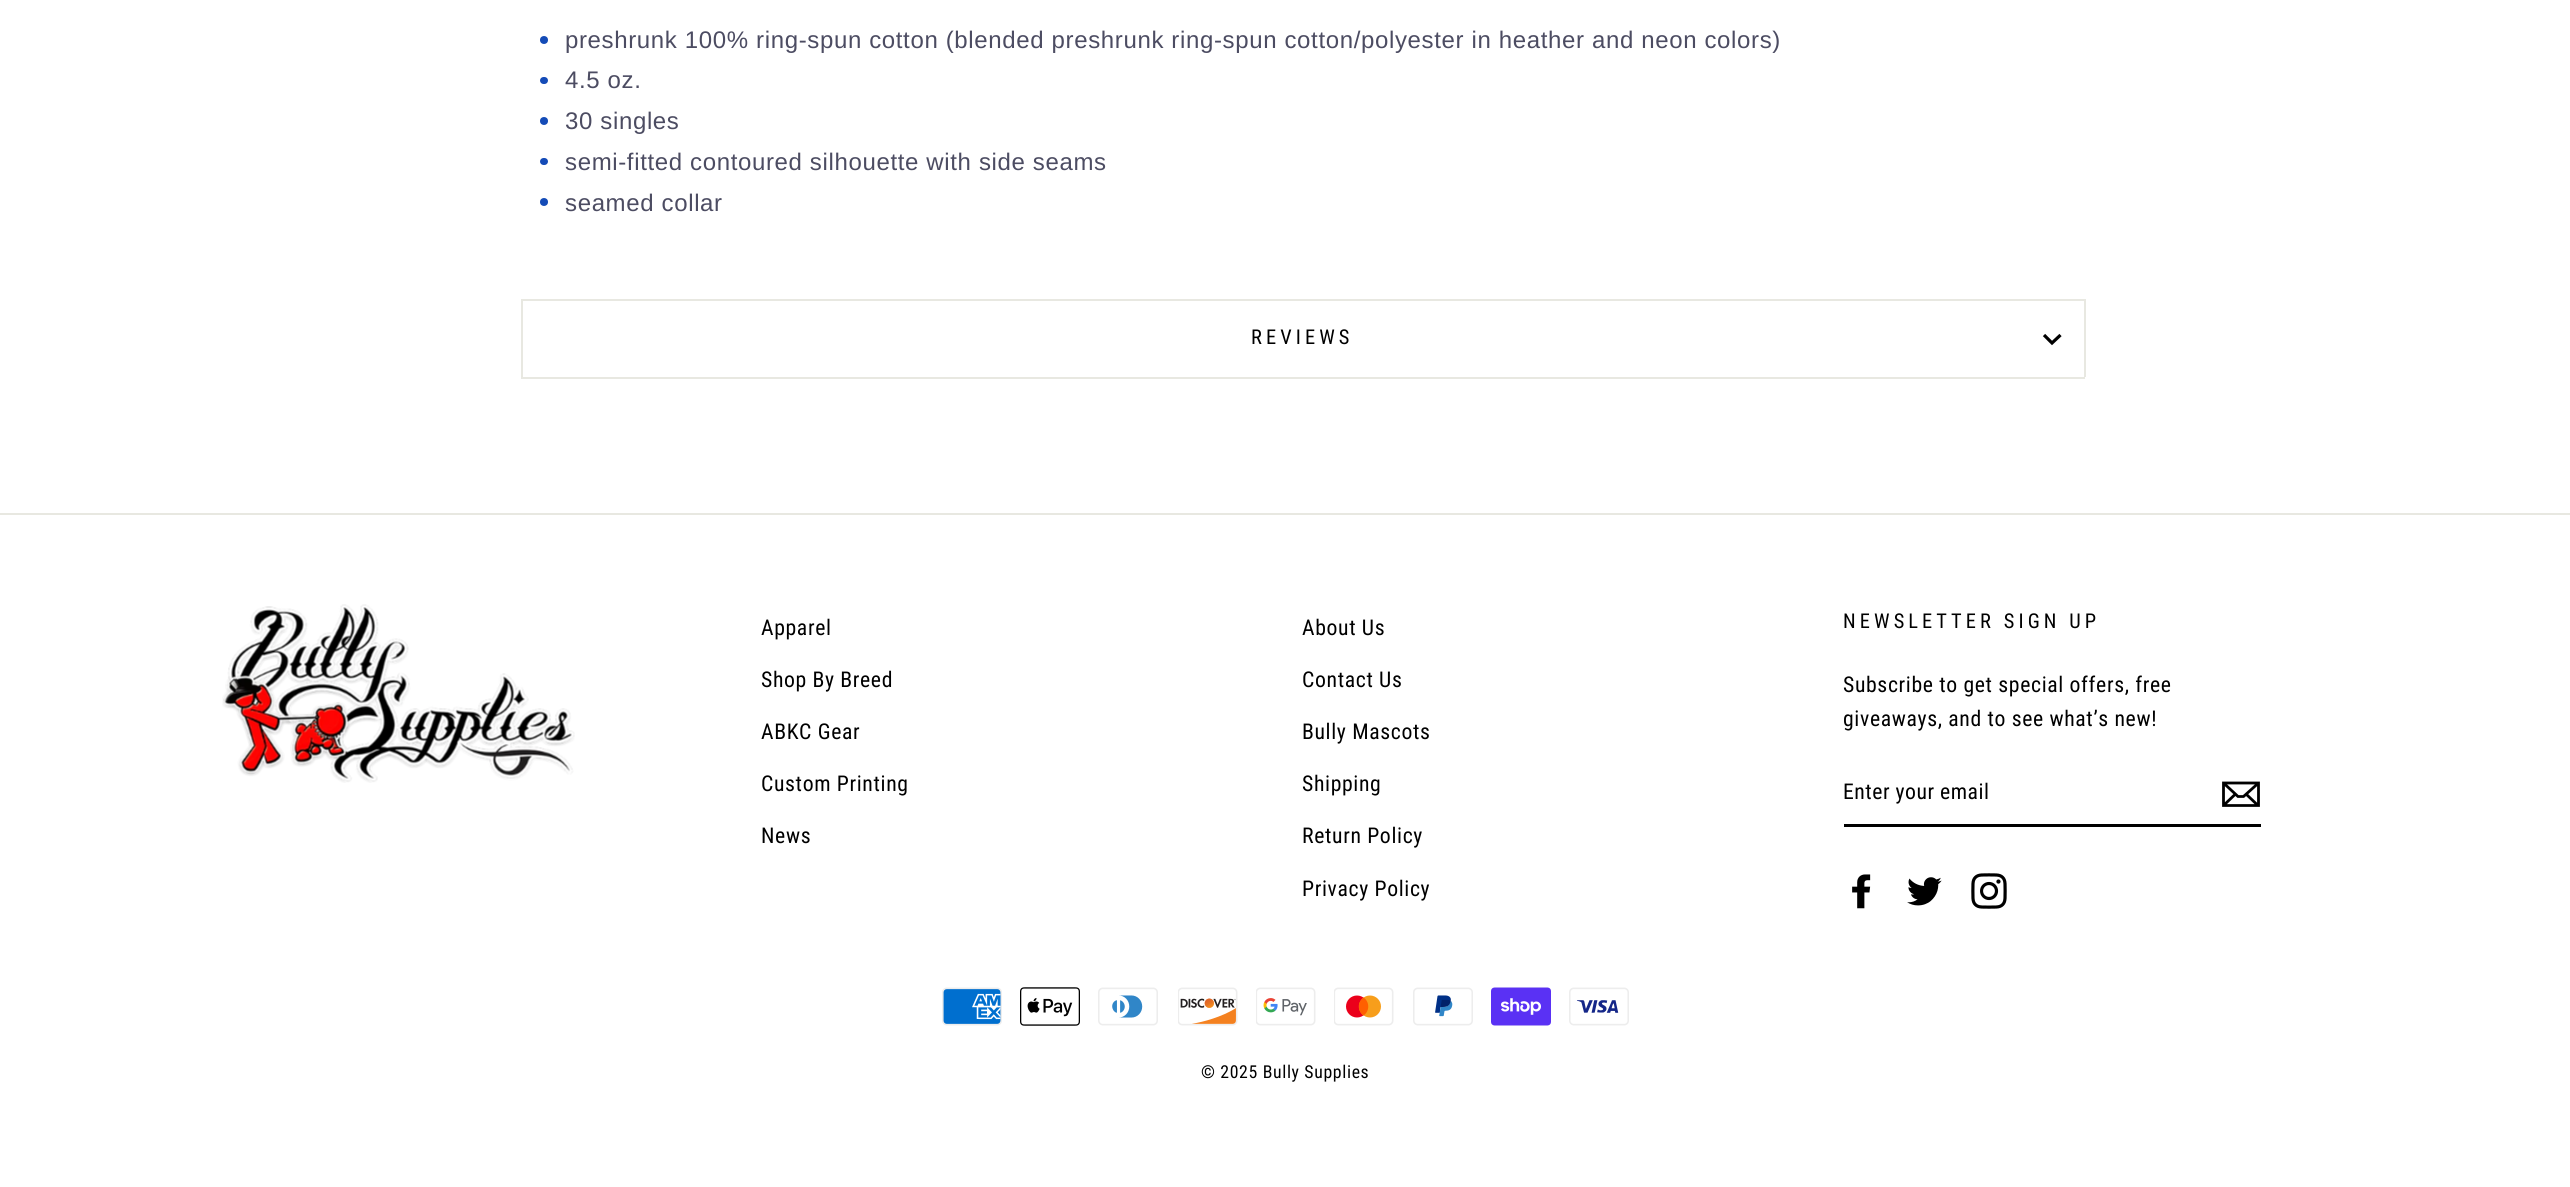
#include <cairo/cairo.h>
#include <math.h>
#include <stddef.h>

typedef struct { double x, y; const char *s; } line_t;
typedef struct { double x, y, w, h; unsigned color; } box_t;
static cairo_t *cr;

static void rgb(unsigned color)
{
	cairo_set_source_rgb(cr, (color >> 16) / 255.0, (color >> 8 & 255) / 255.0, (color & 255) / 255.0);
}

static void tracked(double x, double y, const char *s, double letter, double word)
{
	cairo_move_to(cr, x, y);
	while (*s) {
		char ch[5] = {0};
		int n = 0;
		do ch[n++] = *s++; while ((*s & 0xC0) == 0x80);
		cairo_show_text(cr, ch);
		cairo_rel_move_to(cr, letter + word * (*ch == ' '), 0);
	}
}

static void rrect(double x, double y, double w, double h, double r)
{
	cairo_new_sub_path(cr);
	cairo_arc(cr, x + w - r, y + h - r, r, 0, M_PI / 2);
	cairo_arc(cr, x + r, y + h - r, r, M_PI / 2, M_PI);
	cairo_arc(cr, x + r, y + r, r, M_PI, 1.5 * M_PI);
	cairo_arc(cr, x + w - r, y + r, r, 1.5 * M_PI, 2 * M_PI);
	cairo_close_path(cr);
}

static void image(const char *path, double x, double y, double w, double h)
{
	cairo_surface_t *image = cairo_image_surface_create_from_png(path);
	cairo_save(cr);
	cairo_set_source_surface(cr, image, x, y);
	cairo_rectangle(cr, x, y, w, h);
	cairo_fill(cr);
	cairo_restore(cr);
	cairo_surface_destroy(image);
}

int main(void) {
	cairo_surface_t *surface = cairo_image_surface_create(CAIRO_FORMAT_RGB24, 2570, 1187);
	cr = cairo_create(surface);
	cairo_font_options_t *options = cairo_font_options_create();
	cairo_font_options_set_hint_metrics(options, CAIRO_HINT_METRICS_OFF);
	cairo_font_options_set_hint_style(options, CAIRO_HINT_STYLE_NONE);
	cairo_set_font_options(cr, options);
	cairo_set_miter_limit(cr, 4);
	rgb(0xffffff);
	cairo_paint(cr);
	rgb(0x144bb7);
	cairo_arc(cr, 544, 40, 4, 0, 2 * M_PI);
	cairo_fill(cr);
	rrect(540, 77, 8, 7, 3.5);
	cairo_fill(cr);
	cairo_arc(cr, 544, 121, 4, 0, 2 * M_PI);
	cairo_fill(cr);
	rrect(540, 158, 8, 7, 3.5);
	cairo_fill(cr);
	cairo_arc(cr, 544, 202, 4, 0, 2 * M_PI);
	cairo_fill(cr);
	{
		static const box_t items[] = {
			{521, 377, 1564, 2, 0xe8e8e1},
			{521, 299, 1564, 2, 0xe8e8e1},
			{2084, 299, 2, 78, 0xe8e8e1},
			{521, 299, 2, 78, 0xe8e8e1},
		};
		for (size_t i = 0; i < sizeof items / sizeof *items; i++) {
			rgb(items[i].color);
			cairo_rectangle(cr, items[i].x, items[i].y, items[i].w, items[i].h);
			cairo_fill(cr);
		}
	}
	cairo_new_path(cr);
	cairo_move_to(cr, 2044, 335);
	cairo_line_to(cr, 2052, 343);
	cairo_line_to(cr, 2060.5, 335);
	rgb(0x000000);
	cairo_set_line_width(cr, 3.2);
	cairo_stroke(cr);
	rgb(0xe8e8e1);
	cairo_rectangle(cr, 0, 513, 2570, 2);
	cairo_fill(cr);
	image("img/1.png", 222, 604, 353, 179);
	rgb(0x000000);
	cairo_rectangle(cr, 1844, 824, 417, 3);
	cairo_fill(cr);
	cairo_new_path(cr);
	cairo_move_to(cr, 2258.5, 805.5);
	cairo_line_to(cr, 2223.5, 805.5);
	cairo_line_to(cr, 2223.5, 783);
	cairo_line_to(cr, 2258.5, 783);
	cairo_close_path(cr);
	cairo_move_to(cr, 2223.5, 783);
	cairo_line_to(cr, 2238, 796.5);
	cairo_line_to(cr, 2243.5, 796.5);
	cairo_line_to(cr, 2258.5, 783);
	cairo_move_to(cr, 2235.5, 794);
	cairo_line_to(cr, 2224, 805);
	cairo_move_to(cr, 2258, 805.5);
	cairo_line_to(cr, 2246, 794);
	cairo_set_line_width(cr, 2.8);
	cairo_stroke(cr);
	image("img/2.png", 1852, 874, 19, 35);
	image("img/3.png", 1907, 877, 35, 29);
	image("img/4.png", 1971, 873, 36, 36);
	image("img/5.png", 942, 987, 60, 39);
	image("img/6.png", 1020, 987, 60, 39);
	image("img/7.png", 1098, 987, 60, 39);
	image("img/8.png", 1178, 987, 60, 39);
	image("img/9.png", 1256, 987, 60, 39);
	image("img/10.png", 1334, 987, 60, 39);
	image("img/11.png", 1413, 987, 60, 39);
	image("img/12.png", 1491, 987, 60, 39);
	image("img/13.png", 1569, 987, 60, 39);
	cairo_select_font_face(cr, "Liberation Sans", CAIRO_FONT_SLANT_NORMAL, CAIRO_FONT_WEIGHT_NORMAL);
	cairo_set_font_size(cr, 24);
	rgb(0x4c4c62);
	{
		static const line_t items[] = {
			{565, 48, "preshrunk 100% ring-spun cotton (blended preshrunk ring-spun cotton/polyester in heather and neon colors)"},
			{565, 88, "4.5 oz."},
			{565, 129, "30 singles"},
			{565, 170, "semi-fitted contoured silhouette with side seams"},
			{565, 211, "seamed collar"},
		};
		for (size_t i = 0; i < sizeof items / sizeof *items; i++) {
			tracked(items[i].x, items[i].y, items[i].s, 0.64, 0);
		}
	}
	cairo_select_font_face(cr, "Roboto Condensed", CAIRO_FONT_SLANT_NORMAL, CAIRO_FONT_WEIGHT_NORMAL);
	cairo_set_font_size(cr, 20.4);
	rgb(0x000000);
	tracked(1251, 344, "REVIEWS", 4.1, 0);
	cairo_set_font_size(cr, 21.7);
	{
		static const line_t items[] = {
			{761, 635, "Apparel"},
			{761, 687, "Shop By Breed"},
			{761, 739, "ABKC Gear"},
			{761, 791, "Custom Printing"},
			{761, 843, "News"},
			{1302, 635, "About Us"},
			{1302, 687, "Contact Us"},
			{1302, 739, "Bully Mascots"},
			{1302, 791, "Shipping"},
			{1302, 843, "Return Policy"},
			{1302, 896, "Privacy Policy"},
		};
		for (size_t i = 0; i < sizeof items / sizeof *items; i++) {
			tracked(items[i].x, items[i].y, items[i].s, 0.64, 0);
		}
	}
	cairo_set_font_size(cr, 20.4);
	tracked(1843, 628, "NEWSLETTER SIGN UP", 4.1, 0);
	cairo_set_font_size(cr, 21.7);
	tracked(1843, 692, "Subscribe to get special offers, free", 0.64, 0);
	tracked(1843, 726, "giveaways, and to see what’s new!", 0.64, 0);
	tracked(1843, 799, "Enter your email", 0.5, 0);
	cairo_set_font_size(cr, 17.75);
	tracked(1201, 1078, "© 2025 Bully Supplies", 0.64, 0);
	cairo_surface_write_to_png(surface, "page.png");
	cairo_font_options_destroy(options);
	cairo_destroy(cr);
	cairo_surface_destroy(surface);
	return 0;
}
